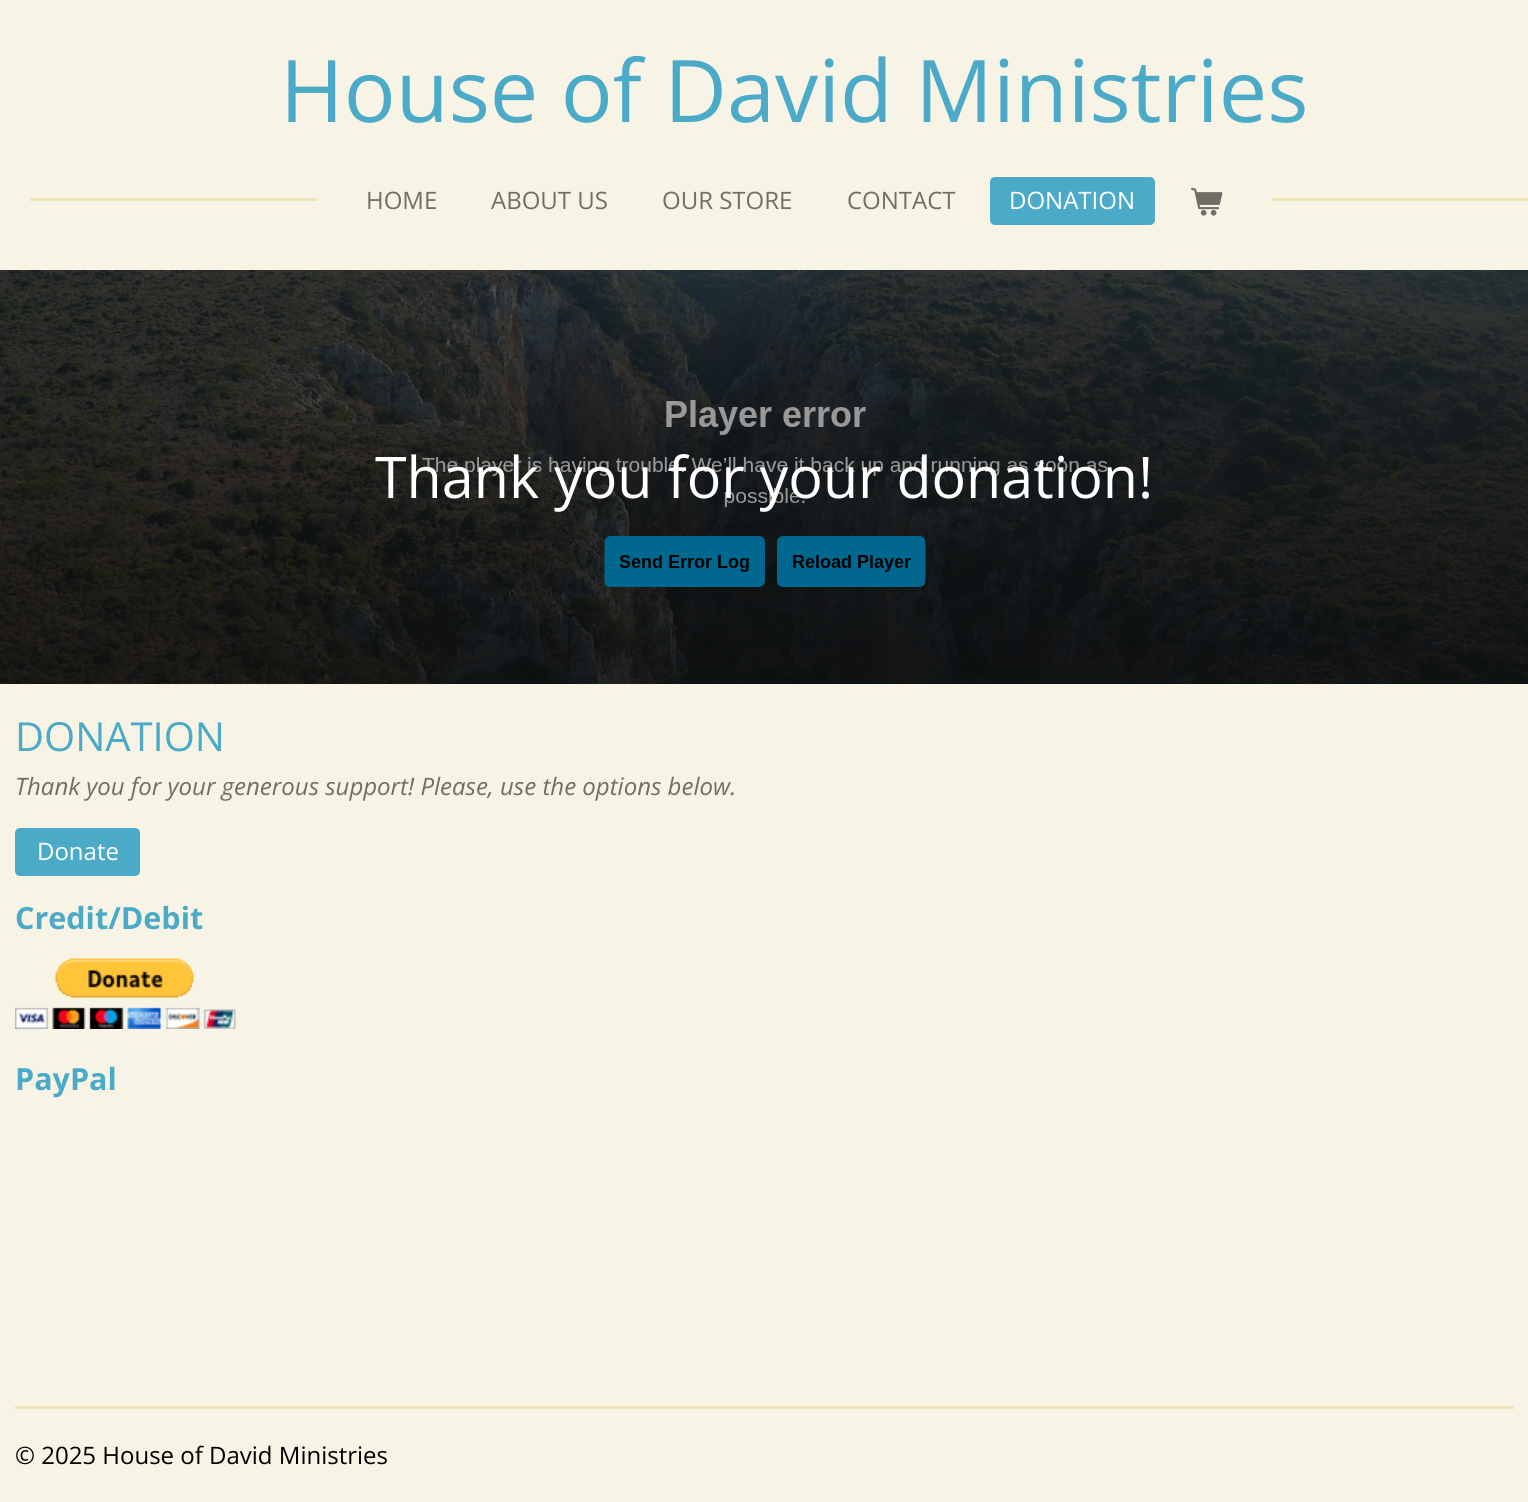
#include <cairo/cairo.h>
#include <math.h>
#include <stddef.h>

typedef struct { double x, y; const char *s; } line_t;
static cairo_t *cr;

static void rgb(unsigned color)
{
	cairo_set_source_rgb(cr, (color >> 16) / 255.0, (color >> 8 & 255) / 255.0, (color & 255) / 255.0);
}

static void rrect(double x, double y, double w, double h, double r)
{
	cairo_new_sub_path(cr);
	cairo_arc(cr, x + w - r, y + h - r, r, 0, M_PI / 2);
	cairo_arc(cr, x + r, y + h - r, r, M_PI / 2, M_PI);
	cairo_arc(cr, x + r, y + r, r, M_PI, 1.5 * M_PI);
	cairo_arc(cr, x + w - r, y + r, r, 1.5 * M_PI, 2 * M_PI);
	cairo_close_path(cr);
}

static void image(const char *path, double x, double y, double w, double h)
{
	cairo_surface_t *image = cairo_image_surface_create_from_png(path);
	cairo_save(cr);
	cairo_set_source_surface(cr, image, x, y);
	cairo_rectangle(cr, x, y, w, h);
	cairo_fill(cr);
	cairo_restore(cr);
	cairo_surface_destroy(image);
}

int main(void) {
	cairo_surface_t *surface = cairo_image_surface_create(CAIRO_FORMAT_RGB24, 1528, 1502);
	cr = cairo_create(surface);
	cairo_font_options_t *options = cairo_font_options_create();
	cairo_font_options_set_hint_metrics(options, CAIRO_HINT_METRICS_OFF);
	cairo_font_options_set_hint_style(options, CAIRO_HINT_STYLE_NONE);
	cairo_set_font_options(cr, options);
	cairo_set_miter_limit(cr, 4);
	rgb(0xf8f4e5);
	cairo_paint(cr);
	rgb(0xede3bd);
	cairo_rectangle(cr, 30, 198, 287, 3);
	cairo_fill(cr);
	rgb(0x4caac9);
	rrect(990, 177, 165, 48, 5);
	cairo_fill(cr);
	image("img/1.png", 1191, 187, 32, 29);
	rgb(0xede3bd);
	cairo_rectangle(cr, 1272, 198, 256, 3);
	cairo_fill(cr);
	image("img/2.png", 0, 270, 1528, 414);
	image("img/3.png", 0, 270, 1528, 414);
	rgb(0x4caac9);
	rrect(15, 828, 125, 48, 5);
	cairo_fill(cr);
	image("img/4.png", 15, 958, 221, 71);
	rgb(0xede3bd);
	cairo_rectangle(cr, 15, 1406, 1499, 3);
	cairo_fill(cr);
	cairo_select_font_face(cr, "Open Sans", CAIRO_FONT_SLANT_NORMAL, CAIRO_FONT_WEIGHT_NORMAL);
	cairo_set_font_size(cr, 86.4);
	rgb(0x4caac9);
	cairo_move_to(cr, 280, 122);
	cairo_show_text(cr, "House of David Ministries");
	cairo_set_font_size(cr, 24);
	rgb(0x706e67);
	{
		static const line_t items[] = {
			{366, 209, "HOME"},
			{491, 209, "ABOUT US"},
			{662, 209, "OUR STORE"},
			{847, 209, "CONTACT"},
		};
		for (size_t i = 0; i < sizeof items / sizeof *items; i++) {
			cairo_move_to(cr, items[i].x, items[i].y);
			cairo_show_text(cr, items[i].s);
		}
	}
	rgb(0xffffff);
	cairo_move_to(cr, 1009, 209);
	cairo_show_text(cr, "DONATION");
	cairo_set_font_size(cr, 57.4);
	cairo_move_to(cr, 375, 498);
	cairo_show_text(cr, "Thank you for your donation!");
	cairo_set_font_size(cr, 40);
	rgb(0x4caac9);
	cairo_move_to(cr, 15, 751);
	cairo_show_text(cr, "DONATION");
	cairo_select_font_face(cr, "Open Sans", CAIRO_FONT_SLANT_ITALIC, CAIRO_FONT_WEIGHT_NORMAL);
	cairo_set_font_size(cr, 24);
	rgb(0x706e67);
	cairo_move_to(cr, 15, 795);
	cairo_show_text(cr, "Thank you for your generous support! Please, use the options below.");
	cairo_select_font_face(cr, "Open Sans", CAIRO_FONT_SLANT_NORMAL, CAIRO_FONT_WEIGHT_NORMAL);
	rgb(0xffffff);
	cairo_move_to(cr, 37, 860);
	cairo_show_text(cr, "Donate");
	cairo_select_font_face(cr, "Open Sans", CAIRO_FONT_SLANT_NORMAL, CAIRO_FONT_WEIGHT_BOLD);
	cairo_set_font_size(cr, 30.5);
	rgb(0x4caac9);
	cairo_move_to(cr, 15, 929);
	cairo_show_text(cr, "Credit/Debit");
	cairo_move_to(cr, 15, 1090);
	cairo_show_text(cr, "PayPal");
	cairo_select_font_face(cr, "Open Sans", CAIRO_FONT_SLANT_NORMAL, CAIRO_FONT_WEIGHT_NORMAL);
	cairo_set_font_size(cr, 24);
	rgb(0x000000);
	cairo_move_to(cr, 15, 1464);
	cairo_show_text(cr, "© 2025 House of David Ministries");
	cairo_surface_write_to_png(surface, "page.png");
	cairo_font_options_destroy(options);
	cairo_destroy(cr);
	cairo_surface_destroy(surface);
	return 0;
}
